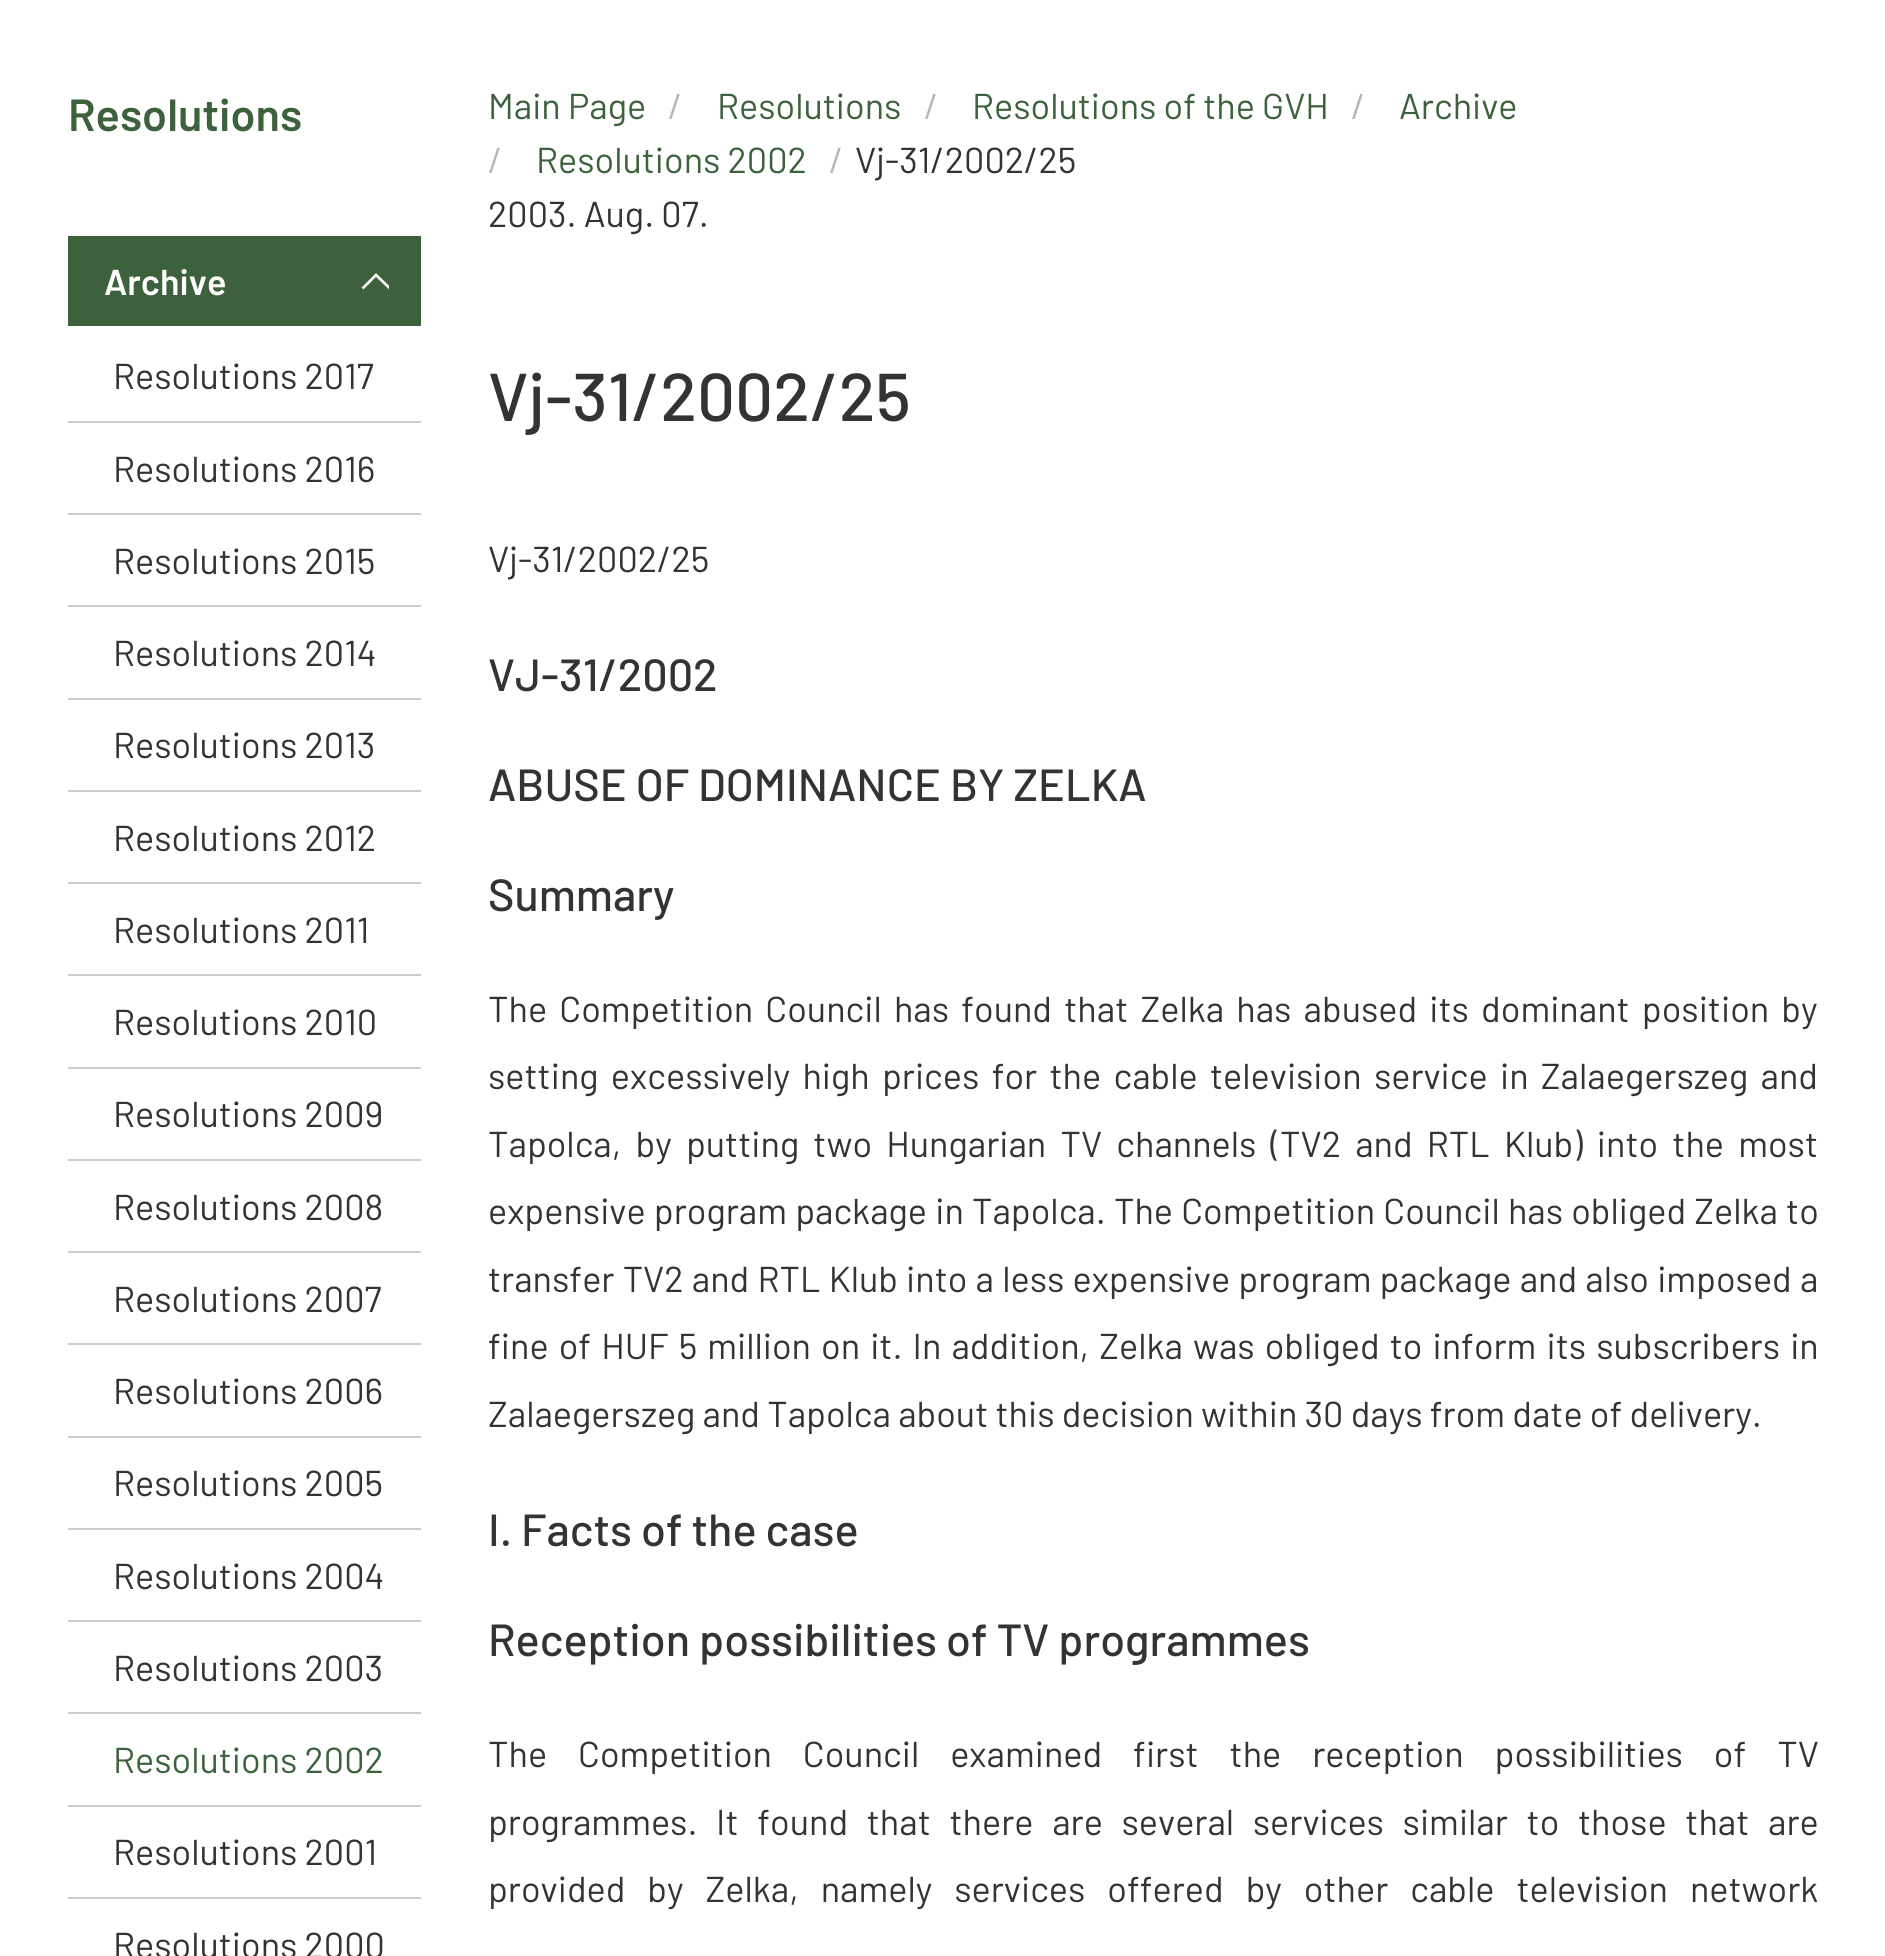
#include <cairo/cairo.h>
#include <math.h>
#include <stddef.h>

typedef struct { double x, y; const char *s; } line_t;
typedef struct { double x, y, w, h; unsigned color; } box_t;
static cairo_t *cr;

static void rgb(unsigned color)
{
	cairo_set_source_rgb(cr, (color >> 16) / 255.0, (color >> 8 & 255) / 255.0, (color & 255) / 255.0);
}

static void tracked(double x, double y, const char *s, double letter, double word)
{
	cairo_move_to(cr, x, y);
	while (*s) {
		char ch[5] = {0};
		int n = 0;
		do ch[n++] = *s++; while ((*s & 0xC0) == 0x80);
		cairo_show_text(cr, ch);
		cairo_rel_move_to(cr, letter + word * (*ch == ' '), 0);
	}
}

int main(void) {
	cairo_surface_t *surface = cairo_image_surface_create(CAIRO_FORMAT_RGB24, 1885, 1956);
	cr = cairo_create(surface);
	cairo_font_options_t *options = cairo_font_options_create();
	cairo_font_options_set_hint_metrics(options, CAIRO_HINT_METRICS_OFF);
	cairo_font_options_set_hint_style(options, CAIRO_HINT_STYLE_NONE);
	cairo_set_font_options(cr, options);
	cairo_set_miter_limit(cr, 4);
	rgb(0xffffff);
	cairo_paint(cr);
	rgb(0x3d613c);
	cairo_rectangle(cr, 68, 236, 353, 90);
	cairo_fill(cr);
	cairo_save(cr);
	cairo_rectangle(cr, 360, 272, 29, 18);
	cairo_clip(cr);
	cairo_new_path(cr);
	cairo_move_to(cr, 362.5, 288.5);
	cairo_line_to(cr, 376, 275);
	cairo_line_to(cr, 390, 288.5);
	rgb(0xffffff);
	cairo_set_line_width(cr, 2.7);
	cairo_stroke(cr);
	cairo_restore(cr);
	{
		static const box_t items[] = {
			{68, 421, 353, 2, 0xcbccce},
			{68, 513, 353, 2, 0xcbccce},
			{68, 605, 353, 2, 0xcbccce},
			{68, 698, 353, 2, 0xcbccce},
			{68, 790, 353, 2, 0xcbccce},
			{68, 882, 353, 2, 0xcbccce},
			{68, 974, 353, 2, 0xcbccce},
			{68, 1067, 353, 2, 0xcbccce},
			{68, 1159, 353, 2, 0xcbccce},
			{68, 1251, 353, 2, 0xcbccce},
			{68, 1343, 353, 2, 0xcbccce},
			{68, 1436, 353, 2, 0xcbccce},
			{68, 1528, 353, 2, 0xcbccce},
			{68, 1620, 353, 2, 0xcbccce},
			{68, 1712, 353, 2, 0xcbccce},
			{68, 1805, 353, 2, 0xcbccce},
			{68, 1897, 353, 2, 0xcbccce},
		};
		for (size_t i = 0; i < sizeof items / sizeof *items; i++) {
			rgb(items[i].color);
			cairo_rectangle(cr, items[i].x, items[i].y, items[i].w, items[i].h);
			cairo_fill(cr);
		}
	}
	cairo_select_font_face(cr, "Barlow SemiBold", CAIRO_FONT_SLANT_NORMAL, CAIRO_FONT_WEIGHT_NORMAL);
	cairo_set_font_size(cr, 45);
	rgb(0x3d613c);
	cairo_move_to(cr, 68, 131);
	cairo_show_text(cr, "Resolutions");
	cairo_set_font_size(cr, 36);
	rgb(0xffffff);
	cairo_move_to(cr, 104, 295);
	cairo_show_text(cr, "Archive");
	cairo_select_font_face(cr, "Barlow", CAIRO_FONT_SLANT_NORMAL, CAIRO_FONT_WEIGHT_NORMAL);
	rgb(0x333333);
	{
		static const line_t items[] = {
			{113, 389, "Resolutions 2017"},
			{113, 482, "Resolutions 2016"},
			{113, 574, "Resolutions 2015"},
			{113, 666, "Resolutions 2014"},
			{113, 758, "Resolutions 2013"},
			{113, 851, "Resolutions 2012"},
			{113, 943, "Resolutions 2011"},
			{113, 1035, "Resolutions 2010"},
			{113, 1127, "Resolutions 2009"},
			{113, 1220, "Resolutions 2008"},
			{113, 1312, "Resolutions 2007"},
			{113, 1404, "Resolutions 2006"},
			{113, 1496, "Resolutions 2005"},
			{113, 1589, "Resolutions 2004"},
			{113, 1681, "Resolutions 2003"},
		};
		for (size_t i = 0; i < sizeof items / sizeof *items; i++) {
			cairo_move_to(cr, items[i].x, items[i].y);
			cairo_show_text(cr, items[i].s);
		}
	}
	rgb(0x3d613c);
	cairo_move_to(cr, 113, 1773);
	cairo_show_text(cr, "Resolutions 2002");
	rgb(0x333333);
	cairo_move_to(cr, 113, 1865);
	cairo_show_text(cr, "Resolutions 2001");
	cairo_move_to(cr, 113, 1958);
	cairo_show_text(cr, "Resolutions 2000");
	rgb(0x3d613c);
	cairo_move_to(cr, 488, 119);
	cairo_show_text(cr, "Main Page");
	rgb(0xb5b5b5);
	cairo_move_to(cr, 668, 119);
	cairo_show_text(cr, "/");
	rgb(0x3d613c);
	cairo_move_to(cr, 717, 119);
	cairo_show_text(cr, "Resolutions");
	rgb(0xb5b5b5);
	cairo_move_to(cr, 924, 119);
	cairo_show_text(cr, "/");
	rgb(0x3d613c);
	cairo_move_to(cr, 972, 119);
	cairo_show_text(cr, "Resolutions of the GVH");
	rgb(0xb5b5b5);
	cairo_move_to(cr, 1351, 119);
	cairo_show_text(cr, "/");
	rgb(0x3d613c);
	cairo_move_to(cr, 1399, 119);
	cairo_show_text(cr, "Archive");
	rgb(0xb5b5b5);
	cairo_move_to(cr, 488, 173);
	cairo_show_text(cr, "/");
	rgb(0x3d613c);
	cairo_move_to(cr, 536, 173);
	cairo_show_text(cr, "Resolutions 2002");
	rgb(0xb5b5b5);
	cairo_move_to(cr, 829, 173);
	cairo_show_text(cr, "/");
	rgb(0x333333);
	cairo_move_to(cr, 855, 173);
	cairo_show_text(cr, "Vj-31/2002/25");
	cairo_move_to(cr, 488, 227);
	cairo_show_text(cr, "2003. Aug. 07.");
	cairo_select_font_face(cr, "Barlow Medium", CAIRO_FONT_SLANT_NORMAL, CAIRO_FONT_WEIGHT_NORMAL);
	cairo_set_font_size(cr, 67.5);
	cairo_move_to(cr, 488, 421);
	cairo_show_text(cr, "Vj-31/2002/25");
	cairo_select_font_face(cr, "Barlow", CAIRO_FONT_SLANT_NORMAL, CAIRO_FONT_WEIGHT_NORMAL);
	cairo_set_font_size(cr, 36);
	cairo_move_to(cr, 488, 572);
	cairo_show_text(cr, "Vj-31/2002/25");
	cairo_select_font_face(cr, "Barlow Medium", CAIRO_FONT_SLANT_NORMAL, CAIRO_FONT_WEIGHT_NORMAL);
	cairo_set_font_size(cr, 45);
	{
		static const line_t items[] = {
			{488, 691, "VJ-31/2002"},
			{488, 801, "ABUSE OF DOMINANCE BY ZELKA"},
			{488, 911, "Summary"},
		};
		for (size_t i = 0; i < sizeof items / sizeof *items; i++) {
			cairo_move_to(cr, items[i].x, items[i].y);
			cairo_show_text(cr, items[i].s);
		}
	}
	cairo_select_font_face(cr, "Barlow", CAIRO_FONT_SLANT_NORMAL, CAIRO_FONT_WEIGHT_NORMAL);
	cairo_set_font_size(cr, 36);
	tracked(488, 1022, "The Competition Council has found that Zelka has abused its dominant position by", 0, 5);
	tracked(488, 1089, "setting excessively high prices for the cable television service in Zalaegerszeg and", 0, 5.1);
	tracked(488, 1157, "Tapolca, by putting two Hungarian TV channels (TV2 and RTL Klub) into the most", 0, 7);
	tracked(488, 1224, "expensive program package in Tapolca. The Competition Council has obliged Zelka to", 0, 1);
	tracked(488, 1292, "transfer TV2 and RTL Klub into a less expensive program package and also imposed a", 0, 1);
	tracked(488, 1359, "fine of HUF 5 million on it. In addition, Zelka was obliged to inform its subscribers in", 0, 2.9);
	cairo_move_to(cr, 488, 1427);
	cairo_show_text(cr, "Zalaegerszeg and Tapolca about this decision within 30 days from date of delivery.");
	cairo_select_font_face(cr, "Barlow Medium", CAIRO_FONT_SLANT_NORMAL, CAIRO_FONT_WEIGHT_NORMAL);
	cairo_set_font_size(cr, 45);
	cairo_move_to(cr, 488, 1546);
	cairo_show_text(cr, "I. Facts of the case");
	cairo_move_to(cr, 488, 1656);
	cairo_show_text(cr, "Reception possibilities of TV programmes");
	cairo_select_font_face(cr, "Barlow", CAIRO_FONT_SLANT_NORMAL, CAIRO_FONT_WEIGHT_NORMAL);
	cairo_set_font_size(cr, 36);
	tracked(488, 1767, "The Competition Council examined first the reception possibilities of TV", 0, 23.75);
	tracked(488, 1835, "programmes. It found that there are several services similar to those that are", 0, 11.5);
	tracked(488, 1902, "provided by Zelka, namely services offered by other cable television network", 0, 14.75);
	cairo_surface_write_to_png(surface, "page.png");
	cairo_font_options_destroy(options);
	cairo_destroy(cr);
	cairo_surface_destroy(surface);
	return 0;
}
